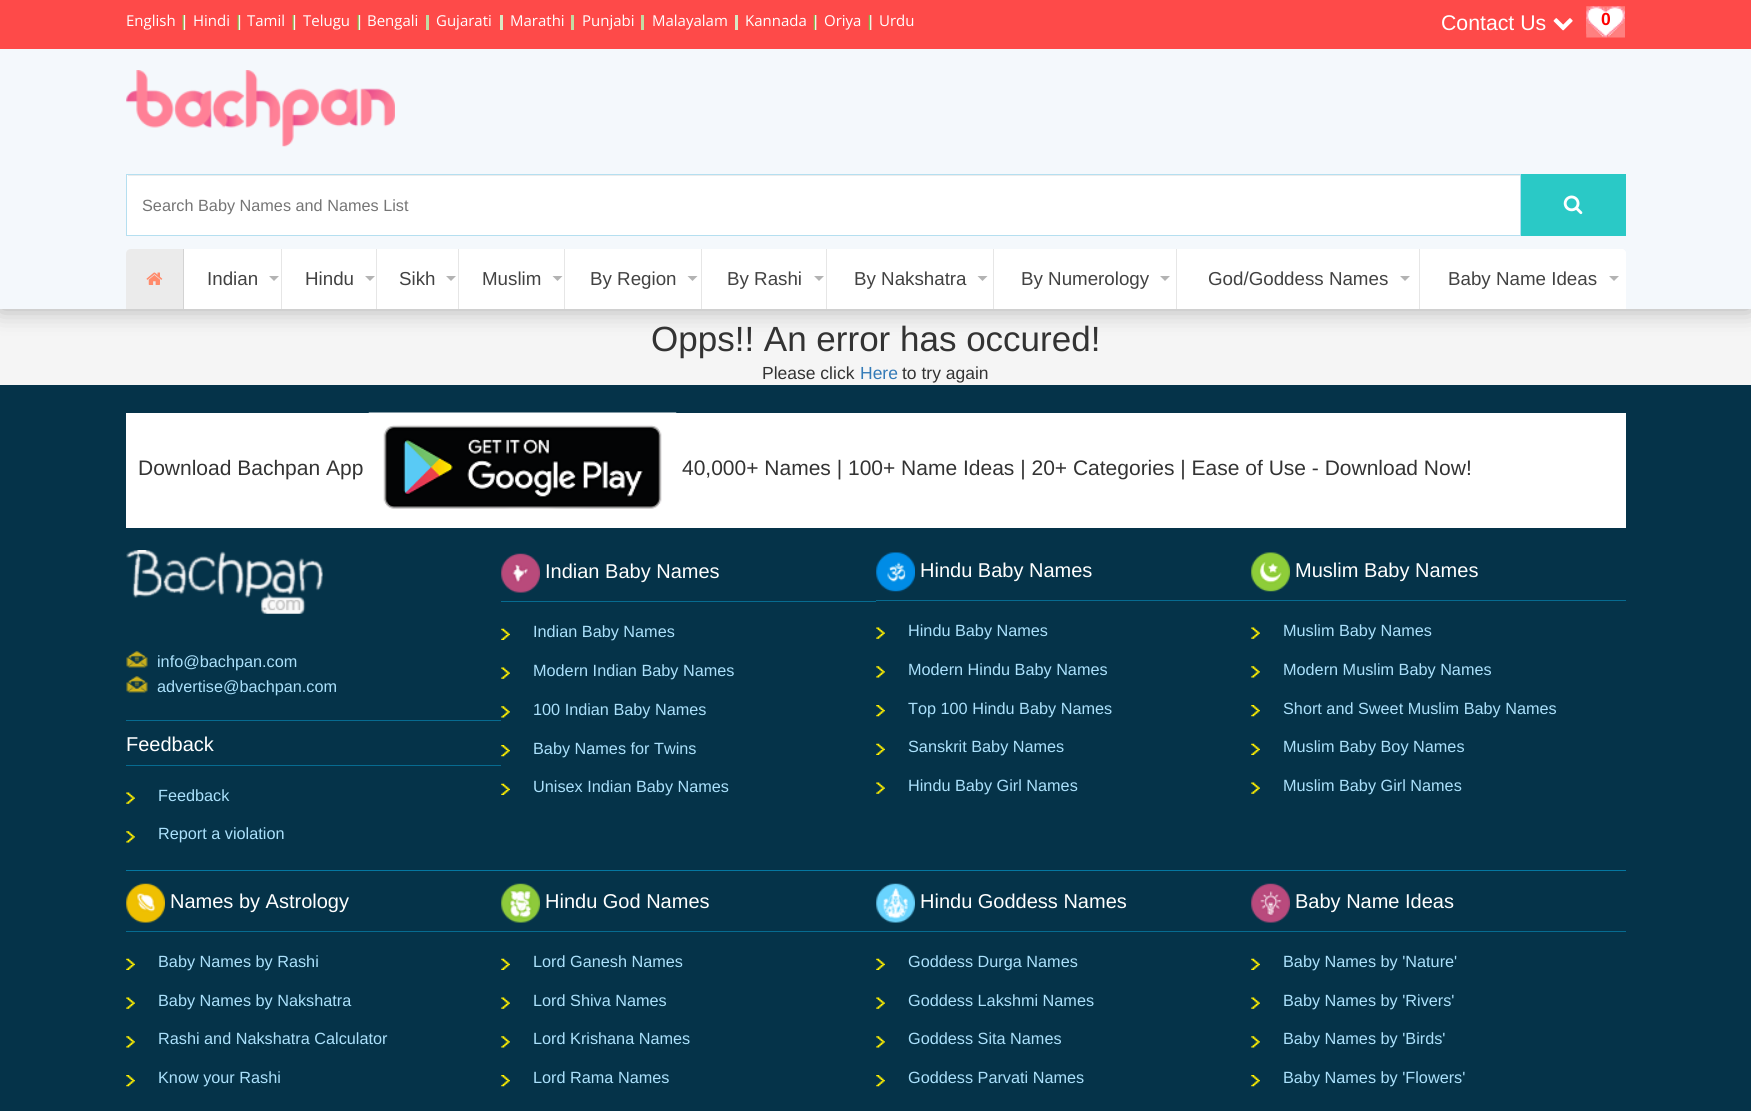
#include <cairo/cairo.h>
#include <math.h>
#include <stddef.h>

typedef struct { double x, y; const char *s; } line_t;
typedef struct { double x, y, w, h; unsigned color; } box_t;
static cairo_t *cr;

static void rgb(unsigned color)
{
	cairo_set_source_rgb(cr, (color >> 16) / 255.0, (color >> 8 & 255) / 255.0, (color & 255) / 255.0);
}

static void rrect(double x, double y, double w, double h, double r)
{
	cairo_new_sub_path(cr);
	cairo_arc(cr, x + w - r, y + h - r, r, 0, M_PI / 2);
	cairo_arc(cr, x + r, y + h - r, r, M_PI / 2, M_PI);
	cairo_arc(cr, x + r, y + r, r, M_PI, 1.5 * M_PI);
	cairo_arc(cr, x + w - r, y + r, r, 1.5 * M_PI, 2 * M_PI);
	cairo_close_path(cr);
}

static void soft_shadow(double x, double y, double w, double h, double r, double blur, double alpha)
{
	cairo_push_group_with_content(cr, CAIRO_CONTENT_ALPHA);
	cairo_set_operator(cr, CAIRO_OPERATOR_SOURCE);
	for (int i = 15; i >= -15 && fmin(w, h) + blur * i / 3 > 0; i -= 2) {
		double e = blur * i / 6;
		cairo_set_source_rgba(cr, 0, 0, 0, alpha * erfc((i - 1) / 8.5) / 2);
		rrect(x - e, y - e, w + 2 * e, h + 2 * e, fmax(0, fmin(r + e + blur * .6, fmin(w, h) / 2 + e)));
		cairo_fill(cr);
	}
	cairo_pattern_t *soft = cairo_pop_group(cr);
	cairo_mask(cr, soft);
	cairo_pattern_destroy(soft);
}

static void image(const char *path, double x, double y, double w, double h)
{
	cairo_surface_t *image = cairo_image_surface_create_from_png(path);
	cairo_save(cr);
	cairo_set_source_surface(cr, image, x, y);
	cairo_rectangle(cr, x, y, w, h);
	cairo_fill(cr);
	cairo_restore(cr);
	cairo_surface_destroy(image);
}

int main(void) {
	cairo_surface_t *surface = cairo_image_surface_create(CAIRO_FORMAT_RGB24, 1751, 1111);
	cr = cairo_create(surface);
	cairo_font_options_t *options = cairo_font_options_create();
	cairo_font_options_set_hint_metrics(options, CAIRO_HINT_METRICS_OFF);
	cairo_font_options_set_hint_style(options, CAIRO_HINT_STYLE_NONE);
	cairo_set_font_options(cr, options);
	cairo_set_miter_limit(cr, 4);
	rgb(0xf5f5f5);
	cairo_paint(cr);
	rgb(0x000000);
	soft_shadow(0, 0, 1751, 309, 0, 12.5, 0.3);
	rgb(0xf4f8fc);
	cairo_rectangle(cr, 0, 49, 1751, 260);
	cairo_fill(cr);
	rgb(0xfe4a49);
	cairo_rectangle(cr, 0, 0, 1751, 49);
	cairo_fill(cr);
	image("img/1.png", 182, 15, 4, 15);
	image("img/1.png", 237, 15, 4, 15);
	image("img/1.png", 292, 15, 4, 15);
	image("img/1.png", 357, 15, 4, 15);
	{
		static const box_t items[] = {
			{426, 15, 3, 15, 0xc2daa2},
			{500, 15, 3, 15, 0xd9e7c4},
			{571, 15, 3, 15, 0xc2daa2},
			{641, 15, 3, 15, 0xc2daa2},
			{735, 15, 3, 15, 0xd9e7c4},
		};
		for (size_t i = 0; i < sizeof items / sizeof *items; i++) {
			rgb(items[i].color);
			cairo_rectangle(cr, items[i].x, items[i].y, items[i].w, items[i].h);
			cairo_fill(cr);
		}
	}
	image("img/2.png", 813, 15, 4, 15);
	image("img/2.png", 868, 15, 4, 15);
	image("img/3.png", 1553, 18, 20, 13);
	image("img/4.png", 1586, 13, 1, 21);
	image("img/5.png", 1586, 6, 39, 32);
	image("img/6.png", 126, 70, 269, 77);
	rgb(0xffffff);
	cairo_rectangle(cr, 127, 175, 1393, 60);
	cairo_fill(cr);
	rgb(0xececec);
	cairo_rectangle(cr, 128, 175, 1392, 1);
	cairo_fill(cr);
	cairo_rectangle(cr, 126.5, 174.5, 1394, 61);
	rgb(0xb5dff0);
	cairo_set_line_width(cr, 1);
	cairo_stroke(cr);
	rgb(0x2ac9c6);
	cairo_rectangle(cr, 1521, 174, 105, 62);
	cairo_fill(cr);
	image("img/7.png", 1563, 195, 20, 20);
	rgb(0xffffff);
	cairo_new_path(cr);
	cairo_move_to(cr, 131, 249);
	cairo_line_to(cr, 1621, 249);
	cairo_curve_to(cr, 1624, 249, 1626, 251, 1626, 254);
	cairo_line_to(cr, 1626, 309);
	cairo_line_to(cr, 126, 309);
	cairo_line_to(cr, 126, 254);
	cairo_curve_to(cr, 126, 251, 128, 249, 131, 249);
	cairo_close_path(cr);
	cairo_fill(cr);
	cairo_set_source_rgba(cr, 0, 0, 0, 0.08);
	cairo_new_path(cr);
	cairo_move_to(cr, 131, 249);
	cairo_line_to(cr, 184, 249);
	cairo_line_to(cr, 184, 309);
	cairo_line_to(cr, 126, 309);
	cairo_line_to(cr, 126, 254);
	cairo_curve_to(cr, 126, 251, 128, 249, 131, 249);
	cairo_close_path(cr);
	cairo_fill(cr);
	rgb(0xd3d3d3);
	cairo_rectangle(cr, 183, 249, 1, 60);
	cairo_fill(cr);
	image("img/8.png", 146, 272, 17, 13);
	rgb(0xe6e6e6);
	cairo_rectangle(cr, 281, 249, 1, 60);
	cairo_fill(cr);
	rgb(0xb3b3b3);
	cairo_new_path(cr);
	cairo_move_to(cr, 269, 276);
	cairo_line_to(cr, 279, 276);
	cairo_line_to(cr, 274, 281);
	cairo_close_path(cr);
	cairo_fill(cr);
	rgb(0xe6e6e6);
	cairo_rectangle(cr, 376, 249, 1, 60);
	cairo_fill(cr);
	rgb(0xb3b3b3);
	cairo_new_path(cr);
	cairo_move_to(cr, 365, 276);
	cairo_line_to(cr, 375, 276);
	cairo_line_to(cr, 370, 281);
	cairo_close_path(cr);
	cairo_fill(cr);
	rgb(0xe6e6e6);
	cairo_rectangle(cr, 458, 249, 1, 60);
	cairo_fill(cr);
	rgb(0xb3b3b3);
	cairo_new_path(cr);
	cairo_move_to(cr, 446, 276);
	cairo_line_to(cr, 456, 276);
	cairo_line_to(cr, 451, 281);
	cairo_close_path(cr);
	cairo_fill(cr);
	rgb(0xe6e6e6);
	cairo_rectangle(cr, 564, 249, 1, 60);
	cairo_fill(cr);
	rgb(0xb3b3b3);
	cairo_new_path(cr);
	cairo_move_to(cr, 552.5, 276);
	cairo_line_to(cr, 562.5, 276);
	cairo_line_to(cr, 557.5, 281);
	cairo_close_path(cr);
	cairo_fill(cr);
	rgb(0xe6e6e6);
	cairo_rectangle(cr, 701, 249, 1, 60);
	cairo_fill(cr);
	rgb(0xb3b3b3);
	cairo_new_path(cr);
	cairo_move_to(cr, 687.5, 276);
	cairo_line_to(cr, 697.5, 276);
	cairo_line_to(cr, 692.5, 281);
	cairo_close_path(cr);
	cairo_fill(cr);
	rgb(0xe6e6e6);
	cairo_rectangle(cr, 826, 249, 1, 60);
	cairo_fill(cr);
	rgb(0xb3b3b3);
	cairo_new_path(cr);
	cairo_move_to(cr, 814, 276);
	cairo_line_to(cr, 824, 276);
	cairo_line_to(cr, 819, 281);
	cairo_close_path(cr);
	cairo_fill(cr);
	rgb(0xe6e6e6);
	cairo_rectangle(cr, 993, 249, 1, 60);
	cairo_fill(cr);
	rgb(0xb3b3b3);
	cairo_new_path(cr);
	cairo_move_to(cr, 977.5, 276);
	cairo_line_to(cr, 987.5, 276);
	cairo_line_to(cr, 982.5, 281);
	cairo_close_path(cr);
	cairo_fill(cr);
	rgb(0xe6e6e6);
	cairo_rectangle(cr, 1176, 249, 1, 60);
	cairo_fill(cr);
	rgb(0xb3b3b3);
	cairo_new_path(cr);
	cairo_move_to(cr, 1160, 276);
	cairo_line_to(cr, 1170, 276);
	cairo_line_to(cr, 1165, 281);
	cairo_close_path(cr);
	cairo_fill(cr);
	rgb(0xe6e6e6);
	cairo_rectangle(cr, 1419, 249, 1, 60);
	cairo_fill(cr);
	rgb(0xb3b3b3);
	cairo_new_path(cr);
	cairo_move_to(cr, 1400, 276);
	cairo_line_to(cr, 1410, 276);
	cairo_line_to(cr, 1405, 281);
	cairo_close_path(cr);
	cairo_fill(cr);
	rgb(0xffffff);
	cairo_new_path(cr);
	cairo_move_to(cr, 1420, 249);
	cairo_line_to(cr, 1621, 249);
	cairo_curve_to(cr, 1624, 249, 1626, 251, 1626, 254);
	cairo_line_to(cr, 1626, 309);
	cairo_line_to(cr, 1420, 309);
	cairo_close_path(cr);
	cairo_fill(cr);
	rgb(0xb3b3b3);
	cairo_new_path(cr);
	cairo_move_to(cr, 1609, 276);
	cairo_line_to(cr, 1619, 276);
	cairo_line_to(cr, 1614, 281);
	cairo_close_path(cr);
	cairo_fill(cr);
	{
		static const box_t items[] = {
			{0, 385, 1751, 726, 0x053349},
			{126, 870, 1500, 1, 0x0577a0},
			{126, 413, 1500, 115, 0xffffff},
		};
		for (size_t i = 0; i < sizeof items / sizeof *items; i++) {
			rgb(items[i].color);
			cairo_rectangle(cr, items[i].x, items[i].y, items[i].w, items[i].h);
			cairo_fill(cr);
		}
	}
	image("img/9.png", 368, 412, 309, 97);
	image("img/10.png", 126, 550, 197, 64);
	rgb(0x076b90);
	cairo_rectangle(cr, 126, 720, 375, 1);
	cairo_fill(cr);
	image("img/11.png", 126, 651, 22, 17);
	image("img/11.png", 126, 676, 22, 17);
	cairo_rectangle(cr, 126, 765, 375, 1);
	cairo_fill(cr);
	image("img/12.png", 126, 792, 9, 12);
	image("img/13.png", 126, 831, 9, 12);
	cairo_rectangle(cr, 501, 601, 375, 1);
	cairo_fill(cr);
	image("img/14.png", 501, 553, 39, 40);
	image("img/15.png", 501, 628, 9, 12);
	image("img/12.png", 501, 667, 9, 12);
	image("img/13.png", 501, 706, 9, 12);
	image("img/16.png", 501, 745, 9, 12);
	image("img/15.png", 501, 783, 9, 12);
	cairo_rectangle(cr, 876, 600, 750, 1);
	cairo_fill(cr);
	image("img/17.png", 876, 552, 39, 40);
	image("img/12.png", 876, 627, 9, 12);
	image("img/13.png", 876, 666, 9, 12);
	image("img/16.png", 876, 705, 9, 12);
	image("img/15.png", 876, 743, 9, 12);
	image("img/12.png", 876, 782, 9, 12);
	image("img/18.png", 1251, 552, 39, 40);
	image("img/12.png", 1251, 627, 9, 12);
	image("img/13.png", 1251, 666, 9, 12);
	image("img/16.png", 1251, 705, 9, 12);
	image("img/15.png", 1251, 743, 9, 12);
	image("img/12.png", 1251, 782, 9, 12);
	cairo_rectangle(cr, 126, 931, 1500, 1);
	cairo_fill(cr);
	image("img/19.png", 126, 883, 39, 40);
	image("img/15.png", 126, 958, 9, 12);
	image("img/12.png", 126, 997, 9, 12);
	image("img/13.png", 126, 1036, 9, 12);
	image("img/16.png", 126, 1075, 9, 12);
	image("img/20.png", 501, 883, 39, 40);
	image("img/15.png", 501, 958, 9, 12);
	image("img/12.png", 501, 997, 9, 12);
	image("img/13.png", 501, 1036, 9, 12);
	image("img/16.png", 501, 1075, 9, 12);
	image("img/21.png", 876, 883, 39, 40);
	image("img/15.png", 876, 958, 9, 12);
	image("img/12.png", 876, 997, 9, 12);
	image("img/13.png", 876, 1036, 9, 12);
	image("img/16.png", 876, 1075, 9, 12);
	image("img/22.png", 1251, 883, 39, 40);
	image("img/15.png", 1251, 958, 9, 12);
	image("img/12.png", 1251, 997, 9, 12);
	image("img/13.png", 1251, 1036, 9, 12);
	image("img/16.png", 1251, 1075, 9, 12);
	cairo_select_font_face(cr, "Open Sans", CAIRO_FONT_SLANT_NORMAL, CAIRO_FONT_WEIGHT_NORMAL);
	cairo_set_font_size(cr, 15);
	rgb(0xffffff);
	{
		static const line_t items[] = {
			{126, 26, "English"},
			{193, 26, "Hindi"},
			{247, 26, "Tamil"},
			{303, 26, "Telugu"},
			{367, 26, "Bengali"},
			{436, 26, "Gujarati"},
			{510, 26, "Marathi"},
			{582, 26, "Punjabi"},
			{652, 26, "Malayalam"},
			{745, 26, "Kannada"},
			{824, 26, "Oriya"},
			{879, 26, "Urdu"},
		};
		for (size_t i = 0; i < sizeof items / sizeof *items; i++) {
			cairo_move_to(cr, items[i].x, items[i].y);
			cairo_show_text(cr, items[i].s);
		}
	}
	cairo_select_font_face(cr, "Liberation Sans", CAIRO_FONT_SLANT_NORMAL, CAIRO_FONT_WEIGHT_NORMAL);
	cairo_set_font_size(cr, 21.25);
	cairo_move_to(cr, 1441, 30);
	cairo_show_text(cr, "Contact Us");
	cairo_select_font_face(cr, "Liberation Sans", CAIRO_FONT_SLANT_NORMAL, CAIRO_FONT_WEIGHT_BOLD);
	cairo_set_font_size(cr, 17.5);
	rgb(0xff0000);
	cairo_move_to(cr, 1601, 25);
	cairo_show_text(cr, "0");
	cairo_select_font_face(cr, "Liberation Sans", CAIRO_FONT_SLANT_NORMAL, CAIRO_FONT_WEIGHT_NORMAL);
	cairo_set_font_size(cr, 16.25);
	rgb(0x757575);
	cairo_move_to(cr, 142, 211);
	cairo_show_text(cr, "Search Baby Names and Names List");
	cairo_set_font_size(cr, 18.75);
	rgb(0x424242);
	{
		static const line_t items[] = {
			{207, 285, "Indian"},
			{305, 285, "Hindu"},
			{399, 285, "Sikh"},
			{482, 285, "Muslim"},
			{590, 285, "By Region"},
			{727, 285, "By Rashi"},
			{854, 285, "By Nakshatra"},
			{1021, 285, "By Numerology"},
			{1208, 285, "God/Goddess Names"},
			{1448, 285, "Baby Name Ideas"},
		};
		for (size_t i = 0; i < sizeof items / sizeof *items; i++) {
			cairo_move_to(cr, items[i].x, items[i].y);
			cairo_show_text(cr, items[i].s);
		}
	}
	cairo_set_font_size(cr, 35);
	rgb(0x333333);
	cairo_move_to(cr, 651, 351);
	cairo_show_text(cr, "Opps!! An error has occured!");
	cairo_set_font_size(cr, 17.5);
	cairo_move_to(cr, 762, 379);
	cairo_show_text(cr, "Please click");
	rgb(0x337ab7);
	cairo_move_to(cr, 860, 379);
	cairo_show_text(cr, "Here");
	rgb(0x333333);
	cairo_move_to(cr, 902, 379);
	cairo_show_text(cr, "to try again");
	cairo_set_font_size(cr, 21);
	cairo_move_to(cr, 138, 475);
	cairo_show_text(cr, "Download Bachpan App");
	cairo_move_to(cr, 682, 475);
	cairo_show_text(cr, "40,000+ Names | 100+ Name Ideas | 20+ Categories | Ease of Use - Download Now!");
	cairo_set_font_size(cr, 16.25);
	rgb(0xabe1fc);
	cairo_move_to(cr, 157, 667);
	cairo_show_text(cr, "info@bachpan.com");
	cairo_move_to(cr, 157, 692);
	cairo_show_text(cr, "advertise@bachpan.com");
	cairo_set_font_size(cr, 20);
	rgb(0xffffff);
	cairo_move_to(cr, 126, 751);
	cairo_show_text(cr, "Feedback");
	cairo_set_font_size(cr, 16.25);
	rgb(0xabe1fc);
	cairo_move_to(cr, 158, 801);
	cairo_show_text(cr, "Feedback");
	cairo_move_to(cr, 158, 839);
	cairo_show_text(cr, "Report a violation");
	cairo_set_font_size(cr, 20);
	rgb(0xffffff);
	cairo_move_to(cr, 545, 578);
	cairo_show_text(cr, "Indian Baby Names");
	cairo_set_font_size(cr, 16.25);
	rgb(0xabe1fc);
	{
		static const line_t items[] = {
			{533, 637, "Indian Baby Names"},
			{533, 676, "Modern Indian Baby Names"},
			{533, 715, "100 Indian Baby Names"},
			{533, 754, "Baby Names for Twins"},
			{533, 792, "Unisex Indian Baby Names"},
		};
		for (size_t i = 0; i < sizeof items / sizeof *items; i++) {
			cairo_move_to(cr, items[i].x, items[i].y);
			cairo_show_text(cr, items[i].s);
		}
	}
	cairo_set_font_size(cr, 20);
	rgb(0xffffff);
	cairo_move_to(cr, 920, 577);
	cairo_show_text(cr, "Hindu Baby Names");
	cairo_set_font_size(cr, 16.25);
	rgb(0xabe1fc);
	{
		static const line_t items[] = {
			{908, 636, "Hindu Baby Names"},
			{908, 675, "Modern Hindu Baby Names"},
			{908, 714, "Top 100 Hindu Baby Names"},
			{908, 752, "Sanskrit Baby Names"},
			{908, 791, "Hindu Baby Girl Names"},
		};
		for (size_t i = 0; i < sizeof items / sizeof *items; i++) {
			cairo_move_to(cr, items[i].x, items[i].y);
			cairo_show_text(cr, items[i].s);
		}
	}
	cairo_set_font_size(cr, 20);
	rgb(0xffffff);
	cairo_move_to(cr, 1295, 577);
	cairo_show_text(cr, "Muslim Baby Names");
	cairo_set_font_size(cr, 16.25);
	rgb(0xabe1fc);
	{
		static const line_t items[] = {
			{1283, 636, "Muslim Baby Names"},
			{1283, 675, "Modern Muslim Baby Names"},
			{1283, 714, "Short and Sweet Muslim Baby Names"},
			{1283, 752, "Muslim Baby Boy Names"},
			{1283, 791, "Muslim Baby Girl Names"},
		};
		for (size_t i = 0; i < sizeof items / sizeof *items; i++) {
			cairo_move_to(cr, items[i].x, items[i].y);
			cairo_show_text(cr, items[i].s);
		}
	}
	cairo_set_font_size(cr, 20);
	rgb(0xffffff);
	cairo_move_to(cr, 170, 908);
	cairo_show_text(cr, "Names by Astrology");
	cairo_set_font_size(cr, 16.25);
	rgb(0xabe1fc);
	{
		static const line_t items[] = {
			{158, 967, "Baby Names by Rashi"},
			{158, 1006, "Baby Names by Nakshatra"},
			{158, 1044, "Rashi and Nakshatra Calculator"},
			{158, 1083, "Know your Rashi"},
		};
		for (size_t i = 0; i < sizeof items / sizeof *items; i++) {
			cairo_move_to(cr, items[i].x, items[i].y);
			cairo_show_text(cr, items[i].s);
		}
	}
	cairo_set_font_size(cr, 20);
	rgb(0xffffff);
	cairo_move_to(cr, 545, 908);
	cairo_show_text(cr, "Hindu God Names");
	cairo_set_font_size(cr, 16.25);
	rgb(0xabe1fc);
	{
		static const line_t items[] = {
			{533, 967, "Lord Ganesh Names"},
			{533, 1006, "Lord Shiva Names"},
			{533, 1044, "Lord Krishana Names"},
			{533, 1083, "Lord Rama Names"},
		};
		for (size_t i = 0; i < sizeof items / sizeof *items; i++) {
			cairo_move_to(cr, items[i].x, items[i].y);
			cairo_show_text(cr, items[i].s);
		}
	}
	cairo_set_font_size(cr, 20);
	rgb(0xffffff);
	cairo_move_to(cr, 920, 908);
	cairo_show_text(cr, "Hindu Goddess Names");
	cairo_set_font_size(cr, 16.25);
	rgb(0xabe1fc);
	{
		static const line_t items[] = {
			{908, 967, "Goddess Durga Names"},
			{908, 1006, "Goddess Lakshmi Names"},
			{908, 1044, "Goddess Sita Names"},
			{908, 1083, "Goddess Parvati Names"},
		};
		for (size_t i = 0; i < sizeof items / sizeof *items; i++) {
			cairo_move_to(cr, items[i].x, items[i].y);
			cairo_show_text(cr, items[i].s);
		}
	}
	cairo_set_font_size(cr, 20);
	rgb(0xffffff);
	cairo_move_to(cr, 1295, 908);
	cairo_show_text(cr, "Baby Name Ideas");
	cairo_set_font_size(cr, 16.25);
	rgb(0xabe1fc);
	{
		static const line_t items[] = {
			{1283, 967, "Baby Names by 'Nature'"},
			{1283, 1006, "Baby Names by 'Rivers'"},
			{1283, 1044, "Baby Names by 'Birds'"},
			{1283, 1083, "Baby Names by 'Flowers'"},
		};
		for (size_t i = 0; i < sizeof items / sizeof *items; i++) {
			cairo_move_to(cr, items[i].x, items[i].y);
			cairo_show_text(cr, items[i].s);
		}
	}
	cairo_surface_write_to_png(surface, "page.png");
	cairo_font_options_destroy(options);
	cairo_destroy(cr);
	cairo_surface_destroy(surface);
	return 0;
}
